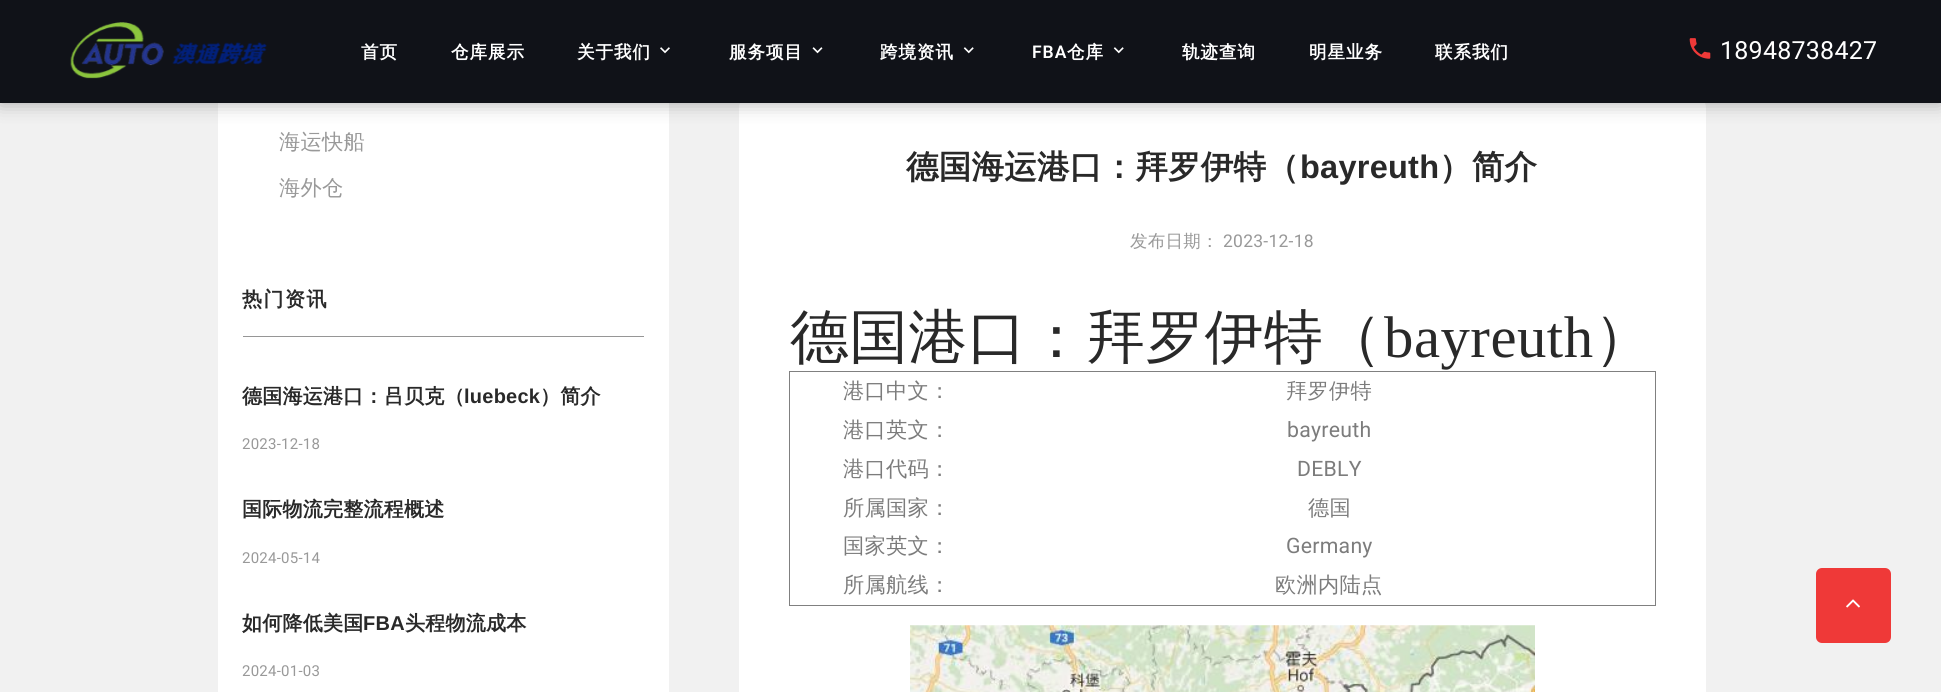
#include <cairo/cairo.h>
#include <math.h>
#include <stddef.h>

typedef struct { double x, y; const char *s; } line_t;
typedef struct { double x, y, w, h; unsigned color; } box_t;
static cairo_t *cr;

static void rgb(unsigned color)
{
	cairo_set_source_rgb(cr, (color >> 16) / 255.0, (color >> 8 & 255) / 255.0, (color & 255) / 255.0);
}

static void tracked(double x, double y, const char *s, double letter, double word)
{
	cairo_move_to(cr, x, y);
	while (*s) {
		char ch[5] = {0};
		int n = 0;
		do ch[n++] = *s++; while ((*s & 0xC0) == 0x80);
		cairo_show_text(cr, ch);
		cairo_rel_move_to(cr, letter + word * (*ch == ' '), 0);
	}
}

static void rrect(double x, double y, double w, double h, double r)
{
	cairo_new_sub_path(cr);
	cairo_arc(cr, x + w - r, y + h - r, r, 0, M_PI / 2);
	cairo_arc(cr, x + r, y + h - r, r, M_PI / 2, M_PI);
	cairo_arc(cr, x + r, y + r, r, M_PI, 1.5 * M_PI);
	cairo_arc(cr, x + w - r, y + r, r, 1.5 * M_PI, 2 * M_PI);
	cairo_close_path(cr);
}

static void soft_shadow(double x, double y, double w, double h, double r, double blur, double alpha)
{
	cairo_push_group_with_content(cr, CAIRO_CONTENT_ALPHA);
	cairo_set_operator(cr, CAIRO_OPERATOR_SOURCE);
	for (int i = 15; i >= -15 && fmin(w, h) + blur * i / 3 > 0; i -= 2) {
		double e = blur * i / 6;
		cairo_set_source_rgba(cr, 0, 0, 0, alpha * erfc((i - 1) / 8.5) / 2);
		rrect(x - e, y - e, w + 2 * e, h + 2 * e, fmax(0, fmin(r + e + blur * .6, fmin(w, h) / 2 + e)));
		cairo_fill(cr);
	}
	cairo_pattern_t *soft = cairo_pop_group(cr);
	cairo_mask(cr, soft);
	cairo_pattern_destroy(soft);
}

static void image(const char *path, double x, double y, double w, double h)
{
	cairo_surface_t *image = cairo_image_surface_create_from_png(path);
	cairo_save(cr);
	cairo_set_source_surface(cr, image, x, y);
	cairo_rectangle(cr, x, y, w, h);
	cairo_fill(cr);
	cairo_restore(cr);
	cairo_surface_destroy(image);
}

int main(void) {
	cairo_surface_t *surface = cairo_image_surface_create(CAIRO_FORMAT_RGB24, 1941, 692);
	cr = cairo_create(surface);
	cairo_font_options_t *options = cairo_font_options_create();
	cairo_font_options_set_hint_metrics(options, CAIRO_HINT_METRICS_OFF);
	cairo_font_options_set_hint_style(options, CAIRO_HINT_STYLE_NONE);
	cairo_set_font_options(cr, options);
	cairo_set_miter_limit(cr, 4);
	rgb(0xf1f1f1);
	cairo_paint(cr);
	rgb(0xffffff);
	cairo_rectangle(cr, 218, 103, 451, 589);
	cairo_fill(cr);
	rrect(739, 95, 967, 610, 13);
	cairo_fill(cr);
	rgb(0x151515);
	soft_shadow(0, 0, 1941, 103, 0, 9.5, 0.35);
	rgb(0x101218);
	cairo_rectangle(cr, 0, 0, 1941, 103);
	cairo_fill(cr);
	image("img/1.png", 70, 22, 197, 57);
	image("img/2.png", 660, 47, 10, 7);
	image("img/3.png", 812, 47, 11, 7);
	image("img/4.png", 963, 47, 11, 7);
	image("img/4.png", 1113, 47, 11, 7);
	image("img/5.png", 1689, 38, 22, 21);
	{
		static const box_t items[] = {
			{243, 336, 401, 1, 0x969696},
			{789, 371, 867, 1, 0x808080},
			{1655, 371, 1, 235, 0x808080},
			{789, 605, 867, 1, 0x808080},
			{789, 371, 1, 235, 0x808080},
		};
		for (size_t i = 0; i < sizeof items / sizeof *items; i++) {
			rgb(items[i].color);
			cairo_rectangle(cr, items[i].x, items[i].y, items[i].w, items[i].h);
			cairo_fill(cr);
		}
	}
	image("img/6.png", 910, 625, 625, 67);
	rgb(0xef3938);
	rrect(1816, 568, 75, 75, 6);
	cairo_fill(cr);
	image("img/7.png", 1846, 599, 14, 9);
	cairo_select_font_face(cr, "WenQuanYi Zen Hei", CAIRO_FONT_SLANT_NORMAL, CAIRO_FONT_WEIGHT_BOLD);
	cairo_set_font_size(cr, 17.5);
	rgb(0xffffff);
	{
		static const line_t items[] = {
			{361, 58, "首页"},
			{451, 58, "仓库展示"},
			{577, 58, "关于我们"},
			{729, 58, "服务项目"},
			{880, 58, "跨境资讯"},
		};
		for (size_t i = 0; i < sizeof items / sizeof *items; i++) {
			tracked(items[i].x, items[i].y, items[i].s, 1, 0);
		}
	}
	cairo_select_font_face(cr, "Roboto SemiBold", CAIRO_FONT_SLANT_NORMAL, CAIRO_FONT_WEIGHT_NORMAL);
	tracked(1032, 58, "FBA", 1, 0);
	cairo_select_font_face(cr, "WenQuanYi Zen Hei", CAIRO_FONT_SLANT_NORMAL, CAIRO_FONT_WEIGHT_BOLD);
	{
		static const line_t items[] = {
			{1067, 58, "仓库"},
			{1182, 58, "轨迹查询"},
			{1309, 58, "明星业务"},
			{1435, 58, "联系我们"},
		};
		for (size_t i = 0; i < sizeof items / sizeof *items; i++) {
			tracked(items[i].x, items[i].y, items[i].s, 1, 0);
		}
	}
	cairo_select_font_face(cr, "Roboto", CAIRO_FONT_SLANT_NORMAL, CAIRO_FONT_WEIGHT_NORMAL);
	cairo_set_font_size(cr, 25);
	tracked(1720, 59, "18948738427", 0.25, 0);
	cairo_select_font_face(cr, "WenQuanYi Zen Hei Medium", CAIRO_FONT_SLANT_NORMAL, CAIRO_FONT_WEIGHT_NORMAL);
	cairo_set_font_size(cr, 21.25);
	rgb(0x999999);
	tracked(279, 149, "海运快船", 0.25, 0);
	tracked(279, 195, "海外仓", 0.25, 0);
	cairo_select_font_face(cr, "WenQuanYi Zen Hei", CAIRO_FONT_SLANT_NORMAL, CAIRO_FONT_WEIGHT_BOLD);
	cairo_set_font_size(cr, 20);
	rgb(0x292929);
	tracked(242, 306, "热门资讯", 1.5, 0);
	tracked(242, 403, "德国海运港口：吕贝克（", 0.25, 0);
	cairo_select_font_face(cr, "Liberation Sans", CAIRO_FONT_SLANT_NORMAL, CAIRO_FONT_WEIGHT_BOLD);
	tracked(464, 403, "luebeck", 0.25, 0);
	cairo_select_font_face(cr, "WenQuanYi Zen Hei", CAIRO_FONT_SLANT_NORMAL, CAIRO_FONT_WEIGHT_BOLD);
	tracked(540, 403, "）简介", 0.25, 0);
	cairo_select_font_face(cr, "Roboto", CAIRO_FONT_SLANT_NORMAL, CAIRO_FONT_WEIGHT_NORMAL);
	cairo_set_font_size(cr, 15);
	rgb(0x999999);
	tracked(242, 449, "2023-12-18", 0.25, 0);
	cairo_select_font_face(cr, "WenQuanYi Zen Hei", CAIRO_FONT_SLANT_NORMAL, CAIRO_FONT_WEIGHT_BOLD);
	cairo_set_font_size(cr, 20);
	rgb(0x292929);
	tracked(242, 516, "国际物流完整流程概述", 0.25, 0);
	cairo_select_font_face(cr, "Roboto", CAIRO_FONT_SLANT_NORMAL, CAIRO_FONT_WEIGHT_NORMAL);
	cairo_set_font_size(cr, 15);
	rgb(0x999999);
	tracked(242, 563, "2024-05-14", 0.25, 0);
	cairo_select_font_face(cr, "WenQuanYi Zen Hei", CAIRO_FONT_SLANT_NORMAL, CAIRO_FONT_WEIGHT_BOLD);
	cairo_set_font_size(cr, 20);
	rgb(0x292929);
	tracked(242, 630, "如何降低美国", 0.25, 0);
	cairo_select_font_face(cr, "Liberation Sans", CAIRO_FONT_SLANT_NORMAL, CAIRO_FONT_WEIGHT_BOLD);
	tracked(363, 630, "FBA", 0.25, 0);
	cairo_select_font_face(cr, "WenQuanYi Zen Hei", CAIRO_FONT_SLANT_NORMAL, CAIRO_FONT_WEIGHT_BOLD);
	tracked(405, 630, "头程物流成本", 0.25, 0);
	cairo_select_font_face(cr, "Roboto", CAIRO_FONT_SLANT_NORMAL, CAIRO_FONT_WEIGHT_NORMAL);
	cairo_set_font_size(cr, 15);
	rgb(0x999999);
	tracked(242, 676, "2024-01-03", 0.25, 0);
	cairo_select_font_face(cr, "WenQuanYi Zen Hei", CAIRO_FONT_SLANT_NORMAL, CAIRO_FONT_WEIGHT_BOLD);
	cairo_set_font_size(cr, 32.5);
	rgb(0x292929);
	tracked(906, 178, "德国海运港口：拜罗伊特（", 0.25, 0);
	cairo_select_font_face(cr, "Liberation Sans", CAIRO_FONT_SLANT_NORMAL, CAIRO_FONT_WEIGHT_BOLD);
	tracked(1300, 178, "bayreuth", 0.25, 0);
	cairo_select_font_face(cr, "WenQuanYi Zen Hei", CAIRO_FONT_SLANT_NORMAL, CAIRO_FONT_WEIGHT_BOLD);
	tracked(1439, 178, "）简介", 0.25, 0);
	cairo_select_font_face(cr, "WenQuanYi Zen Hei Medium", CAIRO_FONT_SLANT_NORMAL, CAIRO_FONT_WEIGHT_NORMAL);
	cairo_set_font_size(cr, 17.5);
	rgb(0x999999);
	tracked(1130, 247, "发布日期：", 0.25, 0);
	cairo_select_font_face(cr, "Roboto", CAIRO_FONT_SLANT_NORMAL, CAIRO_FONT_WEIGHT_NORMAL);
	tracked(1223, 247, "2023-12-18", 0.25, 0);
	cairo_select_font_face(cr, "WenQuanYi Zen Hei Medium", CAIRO_FONT_SLANT_NORMAL, CAIRO_FONT_WEIGHT_NORMAL);
	cairo_set_font_size(cr, 58.75);
	rgb(0x292929);
	tracked(790, 357, "德国港口：拜罗伊特（", 0.5, 0);
	cairo_select_font_face(cr, "Liberation Serif", CAIRO_FONT_SLANT_NORMAL, CAIRO_FONT_WEIGHT_NORMAL);
	tracked(1384, 357, "bayreuth", 0.5, 0);
	cairo_select_font_face(cr, "WenQuanYi Zen Hei Medium", CAIRO_FONT_SLANT_NORMAL, CAIRO_FONT_WEIGHT_NORMAL);
	tracked(1594, 357, "）", 0.5, 0);
	cairo_set_font_size(cr, 21.25);
	rgb(0x7c7c7c);
	{
		static const line_t items[] = {
			{843, 398, "港口中文："},
			{1286, 398, "拜罗伊特"},
			{843, 437, "港口英文："},
		};
		for (size_t i = 0; i < sizeof items / sizeof *items; i++) {
			tracked(items[i].x, items[i].y, items[i].s, 0.25, 0);
		}
	}
	cairo_select_font_face(cr, "Roboto", CAIRO_FONT_SLANT_NORMAL, CAIRO_FONT_WEIGHT_NORMAL);
	tracked(1287, 437, "bayreuth", 0.25, 0);
	cairo_select_font_face(cr, "WenQuanYi Zen Hei Medium", CAIRO_FONT_SLANT_NORMAL, CAIRO_FONT_WEIGHT_NORMAL);
	tracked(843, 476, "港口代码：", 0.25, 0);
	cairo_select_font_face(cr, "Roboto", CAIRO_FONT_SLANT_NORMAL, CAIRO_FONT_WEIGHT_NORMAL);
	tracked(1297, 476, "DEBLY", 0.25, 0);
	cairo_select_font_face(cr, "WenQuanYi Zen Hei Medium", CAIRO_FONT_SLANT_NORMAL, CAIRO_FONT_WEIGHT_NORMAL);
	{
		static const line_t items[] = {
			{843, 515, "所属国家："},
			{1308, 515, "德国"},
			{843, 553, "国家英文："},
		};
		for (size_t i = 0; i < sizeof items / sizeof *items; i++) {
			tracked(items[i].x, items[i].y, items[i].s, 0.25, 0);
		}
	}
	cairo_select_font_face(cr, "Roboto", CAIRO_FONT_SLANT_NORMAL, CAIRO_FONT_WEIGHT_NORMAL);
	tracked(1286, 553, "Germany", 0.25, 0);
	cairo_select_font_face(cr, "WenQuanYi Zen Hei Medium", CAIRO_FONT_SLANT_NORMAL, CAIRO_FONT_WEIGHT_NORMAL);
	tracked(843, 592, "所属航线：", 0.25, 0);
	tracked(1275, 592, "欧洲内陆点", 0.25, 0);
	cairo_surface_write_to_png(surface, "page.png");
	cairo_font_options_destroy(options);
	cairo_destroy(cr);
	cairo_surface_destroy(surface);
	return 0;
}
